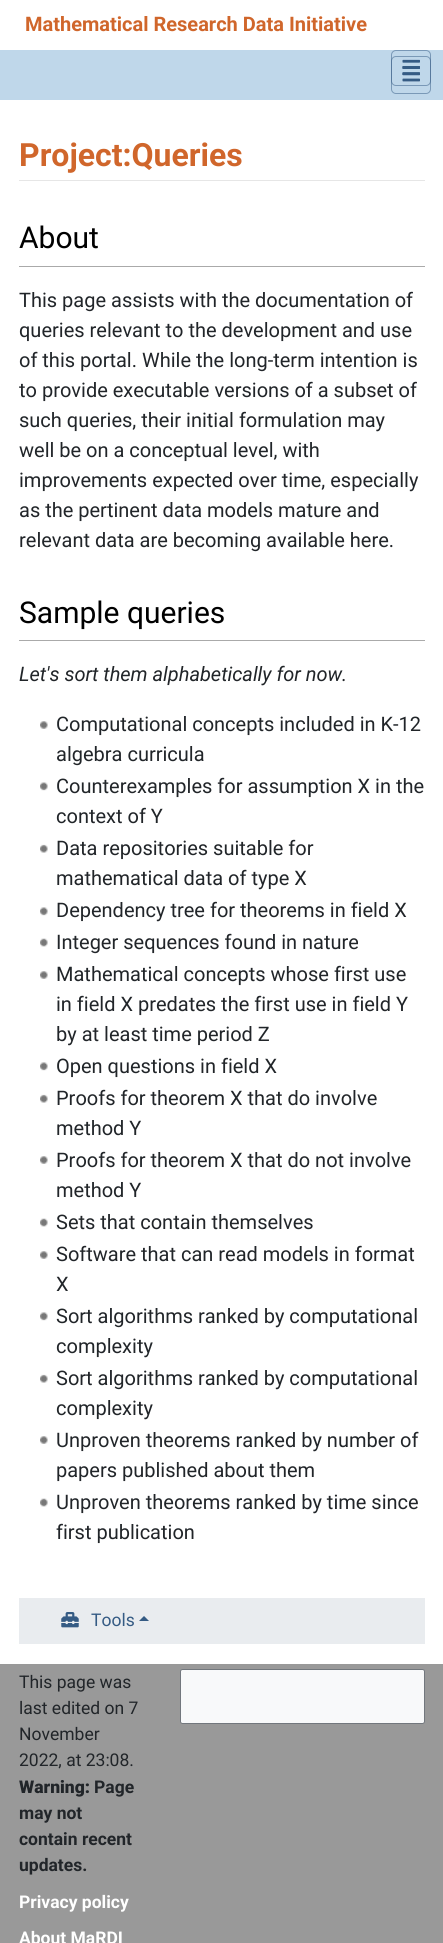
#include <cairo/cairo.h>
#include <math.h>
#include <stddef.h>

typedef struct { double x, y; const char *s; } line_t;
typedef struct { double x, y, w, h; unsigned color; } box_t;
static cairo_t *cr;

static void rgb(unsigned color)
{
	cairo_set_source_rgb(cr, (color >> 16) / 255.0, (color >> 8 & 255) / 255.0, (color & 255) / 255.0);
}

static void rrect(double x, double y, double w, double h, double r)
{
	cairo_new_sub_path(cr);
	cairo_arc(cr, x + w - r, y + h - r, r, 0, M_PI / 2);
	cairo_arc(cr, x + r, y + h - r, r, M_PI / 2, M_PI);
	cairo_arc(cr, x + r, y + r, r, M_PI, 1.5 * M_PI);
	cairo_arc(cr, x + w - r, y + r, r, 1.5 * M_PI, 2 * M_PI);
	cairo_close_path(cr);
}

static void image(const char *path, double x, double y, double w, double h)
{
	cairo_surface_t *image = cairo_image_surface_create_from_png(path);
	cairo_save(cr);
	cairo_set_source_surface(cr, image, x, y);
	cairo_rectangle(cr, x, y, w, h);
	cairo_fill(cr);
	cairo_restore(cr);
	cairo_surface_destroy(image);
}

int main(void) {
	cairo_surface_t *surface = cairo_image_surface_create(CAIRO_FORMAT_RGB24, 443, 1943);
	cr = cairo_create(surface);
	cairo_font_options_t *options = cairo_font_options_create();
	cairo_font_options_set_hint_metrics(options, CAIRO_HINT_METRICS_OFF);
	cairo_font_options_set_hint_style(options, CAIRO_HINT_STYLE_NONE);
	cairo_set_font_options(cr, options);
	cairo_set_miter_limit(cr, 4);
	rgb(0xffffff);
	cairo_paint(cr);
	rgb(0xbfd7ea);
	cairo_rectangle(cr, 0, 50, 443, 50);
	cairo_fill(cr);
	rrect(391.5, 56.5, 39, 37, 4.5);
	rgb(0x7a99b7);
	cairo_set_line_width(cr, 1);
	cairo_stroke(cr);
	image("img/2.png", 402, 66, 18, 16);
	rrect(391.5, 50.5, 39, 35, 4.5);
	cairo_set_source_rgba(cr, 0.208, 0.357, 0.518, 0.5);
	cairo_stroke(cr);
	image("img/1.png", 402, 59, 18, 17);
	{
		static const box_t items[] = {
			{19, 180, 406, 1, 0xe6e6e6},
			{19, 266, 406, 1, 0xaaaaaa},
			{19, 640, 406, 1, 0xaaaaaa},
		};
		for (size_t i = 0; i < sizeof items / sizeof *items; i++) {
			rgb(items[i].color);
			cairo_rectangle(cr, items[i].x, items[i].y, items[i].w, items[i].h);
			cairo_fill(cr);
		}
	}
	image("img/3.png", 40, 721, 8, 8);
	image("img/4.png", 40, 782, 8, 9);
	image("img/5.png", 40, 844, 8, 9);
	image("img/6.png", 40, 907, 8, 9);
	image("img/7.png", 40, 938, 8, 9);
	image("img/3.png", 40, 971, 8, 8);
	image("img/6.png", 40, 1062, 8, 9);
	image("img/5.png", 40, 1094, 8, 9);
	image("img/3.png", 40, 1156, 8, 8);
	image("img/7.png", 40, 1218, 8, 9);
	image("img/3.png", 40, 1251, 8, 8);
	image("img/6.png", 40, 1312, 8, 9);
	image("img/5.png", 40, 1374, 8, 9);
	image("img/3.png", 40, 1436, 8, 8);
	image("img/7.png", 40, 1498, 8, 9);
	rgb(0xe9ecef);
	cairo_rectangle(cr, 19, 1598, 406, 46);
	cairo_fill(cr);
	image("img/8.png", 61, 1612, 18, 16);
	rgb(0x355b84);
	cairo_new_path(cr);
	cairo_move_to(cr, 149, 1621);
	cairo_line_to(cr, 139, 1621);
	cairo_line_to(cr, 144, 1616);
	cairo_close_path(cr);
	cairo_fill(cr);
	rgb(0x999999);
	cairo_rectangle(cr, 0, 1664, 443, 279);
	cairo_fill(cr);
	rgb(0xf8f9fa);
	rrect(180.5, 1669.5, 244, 54, 2);
	cairo_fill_preserve(cr);
	rgb(0x72777d);
	cairo_stroke(cr);
	cairo_select_font_face(cr, "Roboto", CAIRO_FONT_SLANT_NORMAL, CAIRO_FONT_WEIGHT_BOLD);
	cairo_set_font_size(cr, 20);
	rgb(0xd0662b);
	cairo_move_to(cr, 25, 31);
	cairo_show_text(cr, "Mathematical Research Data Initiative");
	cairo_set_font_size(cr, 32);
	cairo_move_to(cr, 19, 166);
	cairo_show_text(cr, "Project:Queries");
	cairo_select_font_face(cr, "Roboto", CAIRO_FONT_SLANT_NORMAL, CAIRO_FONT_WEIGHT_NORMAL);
	cairo_set_font_size(cr, 30);
	rgb(0x000000);
	cairo_move_to(cr, 19, 248);
	cairo_show_text(cr, "About");
	cairo_set_font_size(cr, 20);
	rgb(0x212529);
	{
		static const line_t items[] = {
			{19, 307, "This page assists with the documentation of"},
			{19, 337, "queries relevant to the development and use"},
			{19, 367, "of this portal. While the long-term intention is"},
			{19, 397, "to provide executable versions of a subset of"},
			{19, 427, "such queries, their initial formulation may"},
			{19, 457, "well be on a conceptual level, with"},
			{19, 487, "improvements expected over time, especially"},
			{19, 517, "as the pertinent data models mature and"},
			{19, 547, "relevant data are becoming available here."},
		};
		for (size_t i = 0; i < sizeof items / sizeof *items; i++) {
			cairo_move_to(cr, items[i].x, items[i].y);
			cairo_show_text(cr, items[i].s);
		}
	}
	cairo_set_font_size(cr, 30);
	rgb(0x000000);
	cairo_move_to(cr, 19, 623);
	cairo_show_text(cr, "Sample queries");
	cairo_select_font_face(cr, "Roboto", CAIRO_FONT_SLANT_ITALIC, CAIRO_FONT_WEIGHT_NORMAL);
	cairo_set_font_size(cr, 20);
	rgb(0x212529);
	cairo_move_to(cr, 19, 681);
	cairo_show_text(cr, "Let's sort them alphabetically for now.");
	cairo_select_font_face(cr, "Roboto", CAIRO_FONT_SLANT_NORMAL, CAIRO_FONT_WEIGHT_NORMAL);
	{
		static const line_t items[] = {
			{56, 731, "Computational concepts included in K-12"},
			{56, 761, "algebra curricula"},
			{56, 793, "Counterexamples for assumption X in the"},
			{56, 823, "context of Y"},
			{56, 855, "Data repositories suitable for"},
			{56, 885, "mathematical data of type X"},
			{56, 917, "Dependency tree for theorems in field X"},
			{56, 949, "Integer sequences found in nature"},
			{56, 981, "Mathematical concepts whose first use"},
			{56, 1011, "in field X predates the first use in field Y"},
			{56, 1041, "by at least time period Z"},
			{56, 1073, "Open questions in field X"},
			{56, 1105, "Proofs for theorem X that do involve"},
			{56, 1135, "method Y"},
			{56, 1167, "Proofs for theorem X that do not involve"},
			{56, 1197, "method Y"},
			{56, 1229, "Sets that contain themselves"},
			{56, 1261, "Software that can read models in format"},
			{56, 1291, "X"},
			{56, 1323, "Sort algorithms ranked by computational"},
			{56, 1353, "complexity"},
			{56, 1385, "Sort algorithms ranked by computational"},
			{56, 1415, "complexity"},
			{56, 1447, "Unproven theorems ranked by number of"},
			{56, 1477, "papers published about them"},
			{56, 1509, "Unproven theorems ranked by time since"},
			{56, 1539, "first publication"},
		};
		for (size_t i = 0; i < sizeof items / sizeof *items; i++) {
			cairo_move_to(cr, items[i].x, items[i].y);
			cairo_show_text(cr, items[i].s);
		}
	}
	cairo_set_font_size(cr, 17.5);
	rgb(0x355b84);
	cairo_move_to(cr, 91, 1626);
	cairo_show_text(cr, "Tools");
	rgb(0x212529);
	{
		static const line_t items[] = {
			{19, 1688, "This page was"},
			{19, 1714, "last edited on 7"},
			{19, 1740, "November"},
			{19, 1766, "2022, at 23:08."},
		};
		for (size_t i = 0; i < sizeof items / sizeof *items; i++) {
			cairo_move_to(cr, items[i].x, items[i].y);
			cairo_show_text(cr, items[i].s);
		}
	}
	cairo_select_font_face(cr, "Roboto Black", CAIRO_FONT_SLANT_NORMAL, CAIRO_FONT_WEIGHT_NORMAL);
	cairo_move_to(cr, 19, 1793);
	cairo_show_text(cr, "Warning:");
	cairo_select_font_face(cr, "Roboto", CAIRO_FONT_SLANT_NORMAL, CAIRO_FONT_WEIGHT_BOLD);
	{
		static const line_t items[] = {
			{94, 1793, "Page"},
			{19, 1819, "may not"},
			{19, 1845, "contain recent"},
			{19, 1871, "updates."},
		};
		for (size_t i = 0; i < sizeof items / sizeof *items; i++) {
			cairo_move_to(cr, items[i].x, items[i].y);
			cairo_show_text(cr, items[i].s);
		}
	}
	rgb(0xffffff);
	cairo_move_to(cr, 19, 1908);
	cairo_show_text(cr, "Privacy policy");
	cairo_move_to(cr, 19, 1944);
	cairo_show_text(cr, "About MaRDI");
	cairo_surface_write_to_png(surface, "page.png");
	cairo_font_options_destroy(options);
	cairo_destroy(cr);
	cairo_surface_destroy(surface);
	return 0;
}
